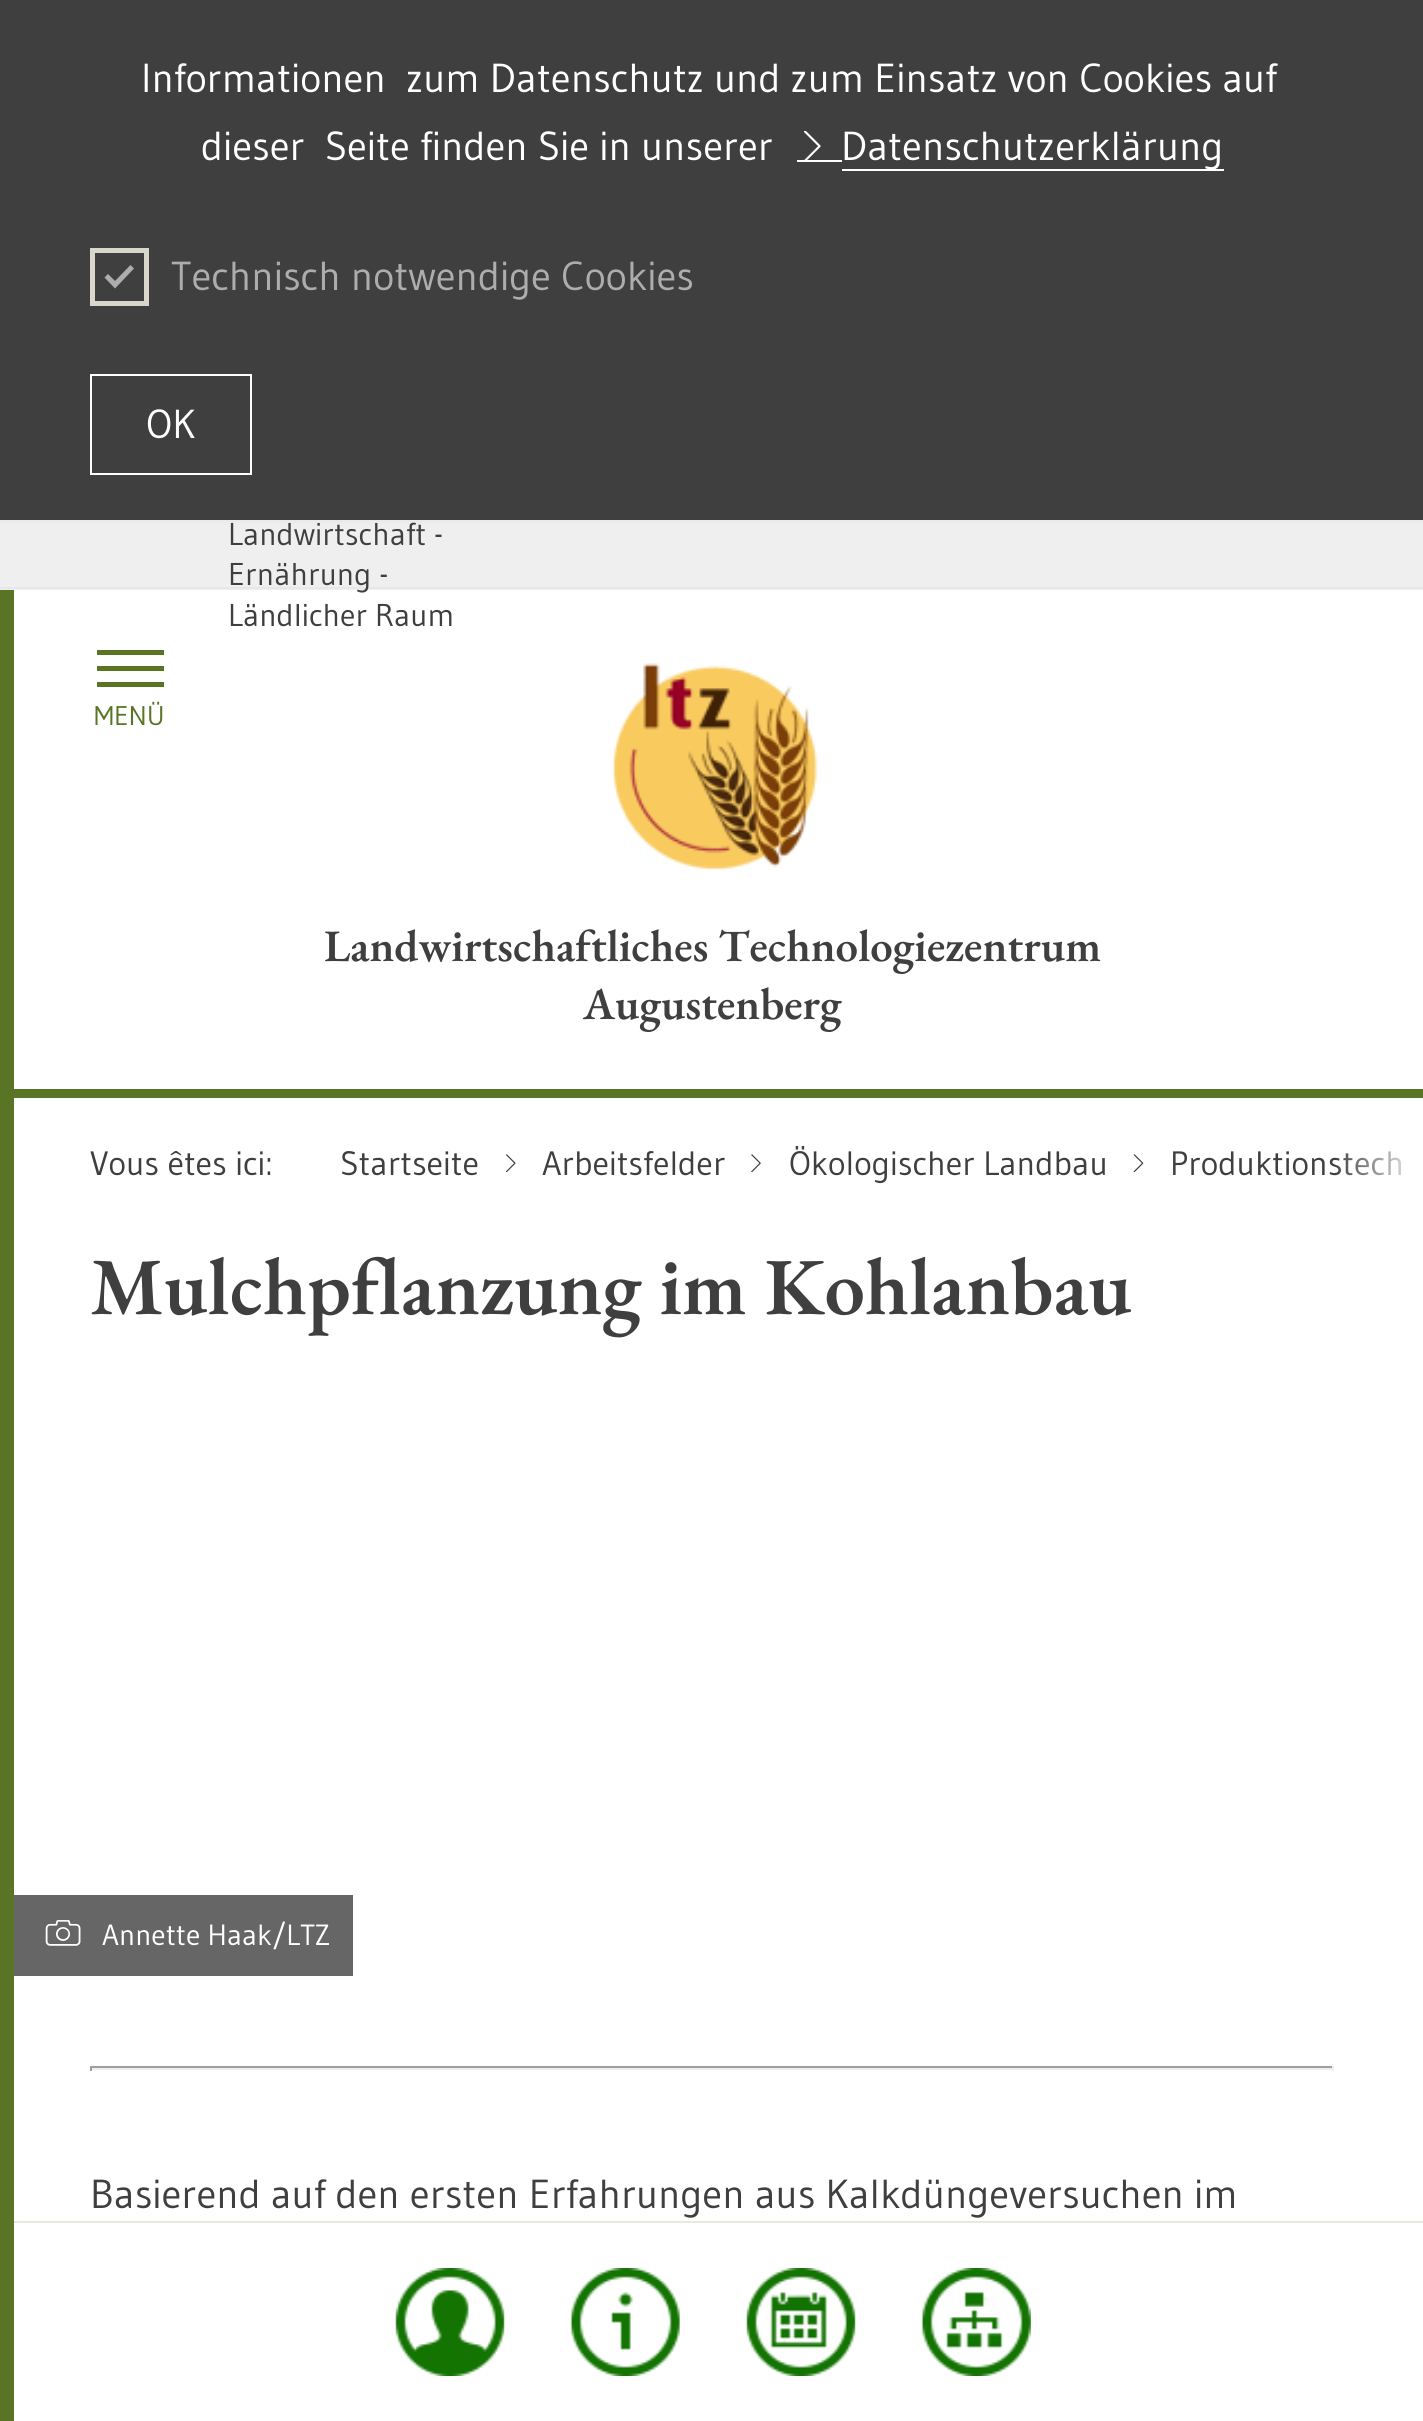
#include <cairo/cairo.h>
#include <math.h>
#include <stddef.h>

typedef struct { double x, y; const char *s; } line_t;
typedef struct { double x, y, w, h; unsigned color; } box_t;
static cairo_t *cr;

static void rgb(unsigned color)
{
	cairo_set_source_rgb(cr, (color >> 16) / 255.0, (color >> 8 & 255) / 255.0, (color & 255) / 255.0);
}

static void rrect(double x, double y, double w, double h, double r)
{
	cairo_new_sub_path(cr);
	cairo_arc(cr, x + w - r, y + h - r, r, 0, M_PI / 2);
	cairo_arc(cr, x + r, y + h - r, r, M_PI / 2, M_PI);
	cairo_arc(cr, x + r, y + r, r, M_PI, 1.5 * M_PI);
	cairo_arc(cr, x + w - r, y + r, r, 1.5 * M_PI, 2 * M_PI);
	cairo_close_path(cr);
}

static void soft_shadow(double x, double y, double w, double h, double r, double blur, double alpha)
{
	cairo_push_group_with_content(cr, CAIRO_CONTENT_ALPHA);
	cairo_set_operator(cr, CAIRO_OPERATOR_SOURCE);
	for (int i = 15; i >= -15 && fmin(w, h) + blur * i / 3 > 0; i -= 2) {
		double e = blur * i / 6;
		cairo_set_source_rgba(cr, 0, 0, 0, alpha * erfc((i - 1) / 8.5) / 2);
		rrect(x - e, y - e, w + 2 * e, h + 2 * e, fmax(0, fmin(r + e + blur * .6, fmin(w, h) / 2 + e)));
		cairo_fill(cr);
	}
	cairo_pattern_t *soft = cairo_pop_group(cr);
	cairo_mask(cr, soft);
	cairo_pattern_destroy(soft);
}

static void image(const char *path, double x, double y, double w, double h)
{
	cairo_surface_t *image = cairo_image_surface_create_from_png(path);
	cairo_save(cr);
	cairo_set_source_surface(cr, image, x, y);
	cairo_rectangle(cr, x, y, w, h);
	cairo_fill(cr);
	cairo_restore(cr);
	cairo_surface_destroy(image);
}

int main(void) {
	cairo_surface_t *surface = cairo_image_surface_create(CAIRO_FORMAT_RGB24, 1423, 2421);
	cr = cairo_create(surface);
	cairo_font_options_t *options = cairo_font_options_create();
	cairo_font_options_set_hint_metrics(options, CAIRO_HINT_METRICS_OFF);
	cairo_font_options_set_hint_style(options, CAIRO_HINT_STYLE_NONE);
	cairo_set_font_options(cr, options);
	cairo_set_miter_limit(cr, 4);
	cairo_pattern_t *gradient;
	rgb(0xffffff);
	cairo_paint(cr);
	rgb(0xefefef);
	cairo_rectangle(cr, 0, 520, 1423, 70);
	cairo_fill(cr);
	rgb(0x000000);
	soft_shadow(2, 0, 1420, 515, 0, 5.5, 0.15);
	rgb(0x3f3f3f);
	cairo_rectangle(cr, 0, 0, 1423, 520);
	cairo_fill(cr);
	cairo_save(cr);
	cairo_rectangle(cr, 842, 122, 382, 49);
	cairo_clip(cr);
	rgb(0xffffff);
	cairo_set_fill_rule(cr, CAIRO_FILL_RULE_EVEN_ODD);
	cairo_new_path(cr);
	cairo_move_to(cr, 619, -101);
	cairo_line_to(cr, 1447, -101);
	cairo_line_to(cr, 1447, 394);
	cairo_line_to(cr, 619, 394);
	cairo_close_path(cr);
	cairo_move_to(cr, 842, 115);
	cairo_line_to(cr, 1224, 115);
	cairo_curve_to(cr, 1225, 115, 1226, 116, 1226, 117);
	cairo_line_to(cr, 1226, 166);
	cairo_curve_to(cr, 1226, 168, 1225, 169, 1224, 169);
	cairo_line_to(cr, 842, 169);
	cairo_curve_to(cr, 840, 169, 839, 168, 839, 166);
	cairo_line_to(cr, 839, 117);
	cairo_curve_to(cr, 839, 116, 840, 115, 842, 115);
	cairo_close_path(cr);
	cairo_fill(cr);
	cairo_restore(cr);
	cairo_save(cr);
	cairo_rectangle(cr, 797, 131, 45, 31);
	cairo_clip(cr);
	rgb(0xffffff);
	cairo_set_fill_rule(cr, CAIRO_FILL_RULE_EVEN_ODD);
	cairo_new_path(cr);
	cairo_move_to(cr, 574, -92);
	cairo_line_to(cr, 1064, -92);
	cairo_line_to(cr, 1064, 385);
	cairo_line_to(cr, 574, 385);
	cairo_close_path(cr);
	cairo_move_to(cr, 796, 124);
	cairo_line_to(cr, 842, 124);
	cairo_curve_to(cr, 843, 124, 844, 125, 844, 126);
	cairo_line_to(cr, 844, 158);
	cairo_curve_to(cr, 844, 159, 843, 160, 842, 160);
	cairo_line_to(cr, 796, 160);
	cairo_curve_to(cr, 795, 160, 794, 159, 794, 158);
	cairo_line_to(cr, 794, 126);
	cairo_curve_to(cr, 794, 125, 795, 124, 796, 124);
	cairo_close_path(cr);
	cairo_fill(cr);
	cairo_restore(cr);
	image("img/1.png", 804, 131, 17, 29);
	cairo_rectangle(cr, 92.5, 250.5, 54, 53);
	rgb(0xd8d6cd);
	cairo_set_line_width(cr, 5);
	cairo_stroke(cr);
	rgb(0xadadad);
	cairo_new_path(cr);
	cairo_move_to(cr, 130.5, 265);
	cairo_line_to(cr, 134, 268.5);
	cairo_line_to(cr, 115, 288.5);
	cairo_line_to(cr, 104.5, 277.5);
	cairo_line_to(cr, 108, 274);
	cairo_line_to(cr, 115, 281);
	cairo_close_path(cr);
	cairo_fill(cr);
	cairo_rectangle(cr, 91, 375, 160, 99);
	rgb(0xffffff);
	cairo_set_line_width(cr, 2);
	cairo_stroke(cr);
	{
		static const box_t items[] = {
			{0, 590, 14, 1831, 0x597425},
			{0, 587, 1423, 2, 0xe8e8e8},
			{14, 1089, 1409, 9, 0x597425},
			{97, 666, 67, 5, 0x597425},
			{97, 650, 67, 5, 0x597425},
			{97, 682, 67, 5, 0x597425},
		};
		for (size_t i = 0; i < sizeof items / sizeof *items; i++) {
			rgb(items[i].color);
			cairo_rectangle(cr, items[i].x, items[i].y, items[i].w, items[i].h);
			cairo_fill(cr);
		}
	}
	image("img/2.png", 611, 663, 207, 208);
	image("img/3.png", 505, 1154, 11, 18);
	image("img/4.png", 751, 1154, 10, 18);
	image("img/5.png", 1133, 1154, 11, 18);
	rgb(0x666666);
	cairo_rectangle(cr, 14, 1895, 339, 81);
	cairo_fill(cr);
	image("img/6.png", 45, 1920, 36, 26);
	{
		static const box_t items[] = {
			{90, 2066, 1244, 2, 0x9f9f9f},
			{1332, 2066, 2, 5, 0xeeeeee},
			{90, 2068, 1244, 2, 0xeeeeee},
			{90, 2066, 2, 5, 0x9f9f9f},
			{14, 2221, 1409, 2, 0xeae8de},
		};
		for (size_t i = 0; i < sizeof items / sizeof *items; i++) {
			rgb(items[i].color);
			cairo_rectangle(cr, items[i].x, items[i].y, items[i].w, items[i].h);
			cairo_fill(cr);
		}
	}
	image("img/7.png", 395, 2268, 110, 108);
	image("img/8.png", 570, 2268, 110, 108);
	image("img/9.png", 746, 2268, 110, 108);
	image("img/10.png", 921, 2268, 110, 108);
	cairo_select_font_face(cr, "Gudea", CAIRO_FONT_SLANT_NORMAL, CAIRO_FONT_WEIGHT_NORMAL);
	cairo_set_font_size(cr, 40.5);
	rgb(0xffffff);
	{
		static const line_t items[] = {
			{141, 92, "Informationen  zum Datenschutz und zum Einsatz von Cookies auf"},
			{201, 160, "dieser  Seite finden Sie in unserer"},
			{841, 160, "Datenschutzerklärung"},
		};
		for (size_t i = 0; i < sizeof items / sizeof *items; i++) {
			cairo_move_to(cr, items[i].x, items[i].y);
			cairo_show_text(cr, items[i].s);
		}
	}
	rgb(0xadadad);
	cairo_move_to(cr, 171, 290);
	cairo_show_text(cr, "Technisch notwendige Cookies");
	rgb(0xffffff);
	cairo_move_to(cr, 146, 438);
	cairo_show_text(cr, "OK");
	cairo_set_font_size(cr, 31.5);
	rgb(0x3f3f3f);
	{
		static const line_t items[] = {
			{228, 545, "Landwirtschaft -"},
			{228, 585, "Ernährung -"},
			{228, 626, "Ländlicher Raum"},
		};
		for (size_t i = 0; i < sizeof items / sizeof *items; i++) {
			cairo_move_to(cr, items[i].x, items[i].y);
			cairo_show_text(cr, items[i].s);
		}
	}
	cairo_set_font_size(cr, 27);
	rgb(0x597425);
	cairo_move_to(cr, 94, 725);
	cairo_show_text(cr, "MENÜ");
	cairo_select_font_face(cr, "EB Garamond SemiBold", CAIRO_FONT_SLANT_NORMAL, CAIRO_FONT_WEIGHT_NORMAL);
	cairo_set_font_size(cr, 45);
	rgb(0x3f3f3f);
	cairo_move_to(cr, 324, 961);
	cairo_show_text(cr, "Landwirtschaftliches Technologiezentrum");
	cairo_move_to(cr, 583, 1019);
	cairo_show_text(cr, "Augustenberg");
	cairo_select_font_face(cr, "Gudea", CAIRO_FONT_SLANT_NORMAL, CAIRO_FONT_WEIGHT_NORMAL);
	cairo_set_font_size(cr, 33.75);
	{
		static const line_t items[] = {
			{90, 1175, "Vous êtes ici:"},
			{340, 1175, "Startseite"},
			{542, 1175, "Arbeitsfelder"},
			{789, 1175, "Ökologischer Landbau"},
			{1170, 1175, "Produktionstech"},
		};
		for (size_t i = 0; i < sizeof items / sizeof *items; i++) {
			cairo_move_to(cr, items[i].x, items[i].y);
			cairo_show_text(cr, items[i].s);
		}
	}
	gradient = cairo_pattern_create_linear(1334, 1154, 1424, 1154);
	cairo_pattern_add_color_stop_rgba(gradient, 0, 1, 1, 1, 0);
	cairo_pattern_add_color_stop_rgba(gradient, 1, 1, 1, 1, 1);
	cairo_set_source(cr, gradient);
	cairo_pattern_destroy(gradient);
	cairo_rectangle(cr, 1336, 1151, 66, 25);
	cairo_fill(cr);
	cairo_select_font_face(cr, "EB Garamond SemiBold", CAIRO_FONT_SLANT_NORMAL, CAIRO_FONT_WEIGHT_NORMAL);
	cairo_set_font_size(cr, 81);
	rgb(0x3f3f3f);
	cairo_move_to(cr, 90, 1314);
	cairo_show_text(cr, "Mulchpflanzung im Kohlanbau");
	cairo_select_font_face(cr, "Gudea", CAIRO_FONT_SLANT_NORMAL, CAIRO_FONT_WEIGHT_NORMAL);
	cairo_set_font_size(cr, 29.25);
	rgb(0xffffff);
	cairo_move_to(cr, 102, 1945);
	cairo_show_text(cr, "Annette Haak/LTZ");
	cairo_set_font_size(cr, 40.5);
	rgb(0x3f3f3f);
	cairo_move_to(cr, 90, 2208);
	cairo_show_text(cr, "Basierend auf den ersten Erfahrungen aus Kalkdüngeversuchen im");
	cairo_surface_write_to_png(surface, "page.png");
	cairo_font_options_destroy(options);
	cairo_destroy(cr);
	cairo_surface_destroy(surface);
	return 0;
}
